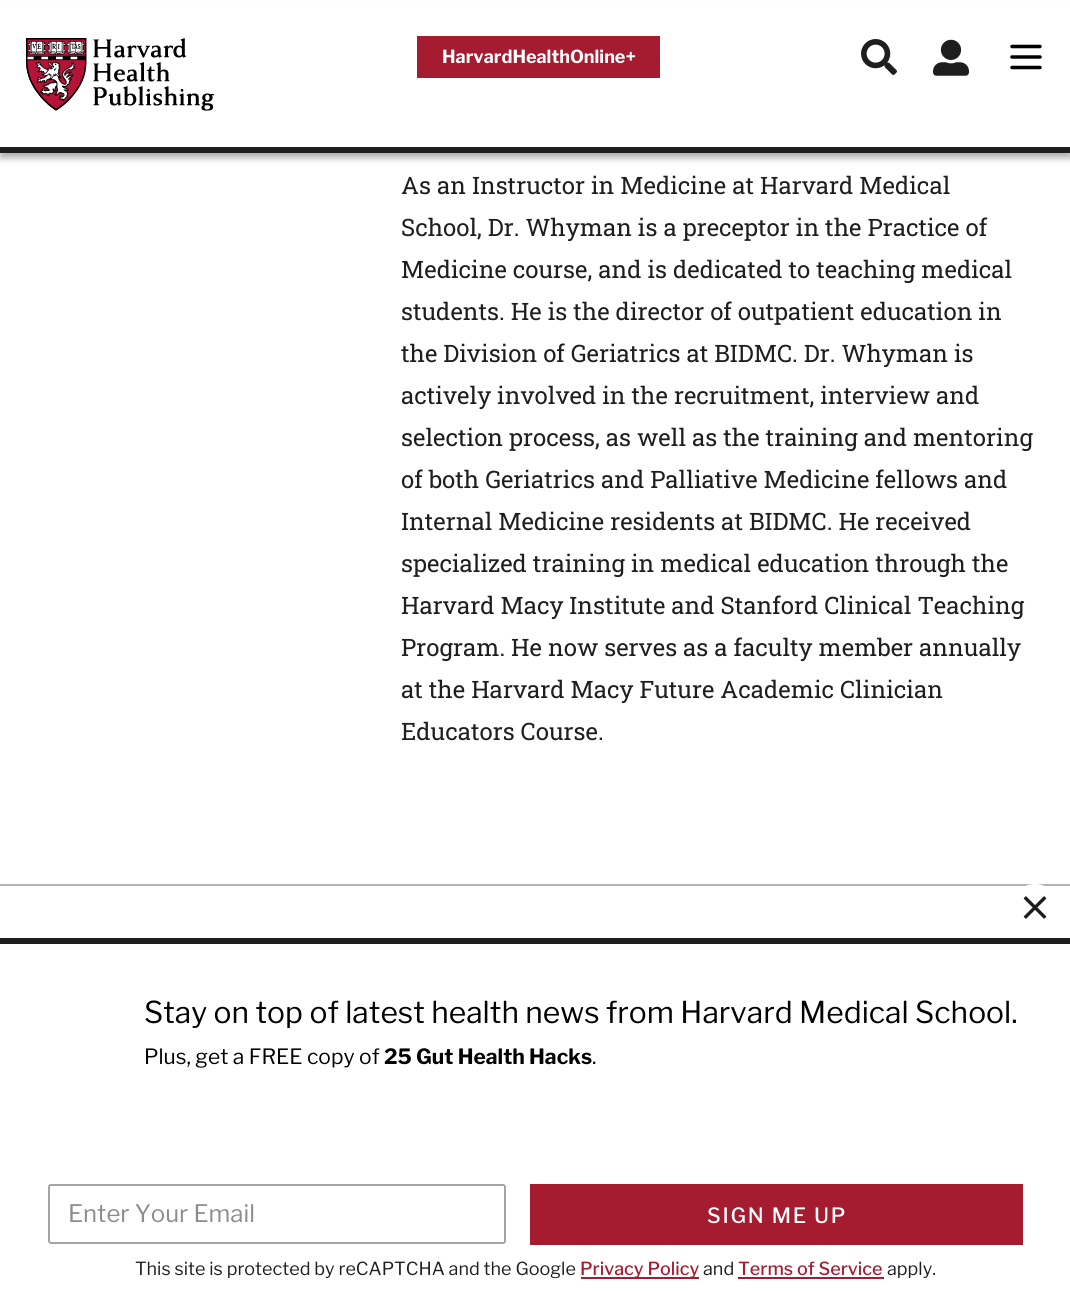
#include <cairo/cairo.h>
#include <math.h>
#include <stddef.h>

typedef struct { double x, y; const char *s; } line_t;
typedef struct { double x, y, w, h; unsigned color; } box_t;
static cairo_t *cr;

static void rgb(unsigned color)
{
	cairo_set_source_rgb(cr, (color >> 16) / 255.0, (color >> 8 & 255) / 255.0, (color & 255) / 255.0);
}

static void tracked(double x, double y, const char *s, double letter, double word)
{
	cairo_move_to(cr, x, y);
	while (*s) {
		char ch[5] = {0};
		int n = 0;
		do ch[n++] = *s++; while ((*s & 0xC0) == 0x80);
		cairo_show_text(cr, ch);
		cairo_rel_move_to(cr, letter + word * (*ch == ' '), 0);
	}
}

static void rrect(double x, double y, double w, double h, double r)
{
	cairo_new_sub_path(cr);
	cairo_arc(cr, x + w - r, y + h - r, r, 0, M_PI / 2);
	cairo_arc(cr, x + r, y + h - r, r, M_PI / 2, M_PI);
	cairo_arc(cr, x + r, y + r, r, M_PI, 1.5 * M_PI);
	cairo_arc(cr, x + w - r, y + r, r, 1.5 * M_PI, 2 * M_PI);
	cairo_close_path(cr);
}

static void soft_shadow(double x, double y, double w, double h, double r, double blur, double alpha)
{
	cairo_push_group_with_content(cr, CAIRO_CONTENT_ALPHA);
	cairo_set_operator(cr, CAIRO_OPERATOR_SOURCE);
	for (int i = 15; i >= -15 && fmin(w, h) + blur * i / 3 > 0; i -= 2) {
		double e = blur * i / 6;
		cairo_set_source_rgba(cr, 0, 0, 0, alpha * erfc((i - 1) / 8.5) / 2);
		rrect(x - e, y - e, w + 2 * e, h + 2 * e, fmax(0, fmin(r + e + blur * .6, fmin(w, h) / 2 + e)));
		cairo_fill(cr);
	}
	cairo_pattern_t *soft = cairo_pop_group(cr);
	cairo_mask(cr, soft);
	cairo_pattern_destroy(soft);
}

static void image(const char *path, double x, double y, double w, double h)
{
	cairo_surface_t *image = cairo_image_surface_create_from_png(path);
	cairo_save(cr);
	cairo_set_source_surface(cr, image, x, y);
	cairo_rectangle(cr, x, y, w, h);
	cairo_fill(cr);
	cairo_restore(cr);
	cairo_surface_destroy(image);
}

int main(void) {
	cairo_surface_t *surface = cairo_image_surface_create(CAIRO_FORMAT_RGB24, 1070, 1291);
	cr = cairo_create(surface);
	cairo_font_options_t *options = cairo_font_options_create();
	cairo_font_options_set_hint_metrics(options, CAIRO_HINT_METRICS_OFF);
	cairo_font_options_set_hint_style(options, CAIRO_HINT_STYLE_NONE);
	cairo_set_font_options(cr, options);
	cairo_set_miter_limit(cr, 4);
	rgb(0xffffff);
	cairo_paint(cr);
	rgb(0x000000);
	soft_shadow(0, 3, 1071, 153, 0, 1, 0.06);
	soft_shadow(0, 6, 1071, 153, 0, 3, 0.25);
	rgb(0xffffff);
	cairo_rectangle(cr, 0, 1, 1070, 146);
	cairo_fill(cr);
	rgb(0x1e1e1e);
	cairo_rectangle(cr, 0, 147, 1070, 6);
	cairo_fill(cr);
	image("img/1.png", 26, 38, 188, 73);
	rgb(0xa51c30);
	cairo_rectangle(cr, 417, 36, 243, 42);
	cairo_fill(cr);
	image("img/2.png", 861, 39, 36, 36);
	image("img/3.png", 933, 39, 36, 37);
	cairo_new_path(cr);
	cairo_move_to(cr, 1012, 46.5);
	cairo_line_to(cr, 1040, 46.5);
	cairo_move_to(cr, 1012, 57);
	cairo_line_to(cr, 1040, 57);
	cairo_move_to(cr, 1012, 67.5);
	cairo_line_to(cr, 1040, 67.5);
	rgb(0x000000);
	cairo_set_line_width(cr, 3.5);
	cairo_set_line_cap(cr, CAIRO_LINE_CAP_ROUND);
	cairo_set_line_join(cr, CAIRO_LINE_JOIN_ROUND);
	cairo_stroke(cr);
	rgb(0xb4b4b4);
	cairo_rectangle(cr, 0, 884, 1070, 2);
	cairo_fill(cr);
	rgb(0x1e1e1e);
	cairo_rectangle(cr, 0, 938, 1070, 6);
	cairo_fill(cr);
	rgb(0xffffff);
	cairo_arc(cr, 1035, 908, 24, 0, 2 * M_PI);
	cairo_fill(cr);
	image("img/4.png", 1023, 896, 24, 23);
	rrect(49, 1185, 456, 58, 2);
	rgb(0xa5a5a5);
	cairo_set_line_width(cr, 2);
	cairo_set_line_cap(cr, CAIRO_LINE_CAP_BUTT);
	cairo_set_line_join(cr, CAIRO_LINE_JOIN_MITER);
	cairo_stroke(cr);
	{
		static const box_t items[] = {
			{530, 1184, 493, 61, 0xa51c30},
			{581, 1277, 118, 2, 0xa51c30},
			{738, 1277, 146, 2, 0xa51c30},
		};
		for (size_t i = 0; i < sizeof items / sizeof *items; i++) {
			rgb(items[i].color);
			cairo_rectangle(cr, items[i].x, items[i].y, items[i].w, items[i].h);
			cairo_fill(cr);
		}
	}
	cairo_select_font_face(cr, "Libre Franklin Thin", CAIRO_FONT_SLANT_NORMAL, CAIRO_FONT_WEIGHT_NORMAL);
	cairo_set_font_size(cr, 18);
	rgb(0xffffff);
	cairo_move_to(cr, 442, 63);
	cairo_show_text(cr, "HarvardHealthOnline+");
	cairo_select_font_face(cr, "Roboto Slab", CAIRO_FONT_SLANT_NORMAL, CAIRO_FONT_WEIGHT_NORMAL);
	cairo_set_font_size(cr, 24);
	rgb(0x1e1e1e);
	{
		static const line_t items[] = {
			{401, 194, "As an Instructor in Medicine at Harvard Medical"},
			{401, 236, "School, Dr. Whyman is a preceptor in the Practice of"},
			{401, 278, "Medicine course, and is dedicated to teaching medical"},
			{401, 320, "students. He is the director of outpatient education in"},
			{401, 362, "the Division of Geriatrics at BIDMC. Dr. Whyman is"},
			{401, 404, "actively involved in the recruitment, interview and"},
			{401, 446, "selection process, as well as the training and mentoring"},
			{401, 488, "of both Geriatrics and Palliative Medicine fellows and"},
			{401, 530, "Internal Medicine residents at BIDMC. He received"},
			{401, 572, "specialized training in medical education through the"},
			{401, 614, "Harvard Macy Institute and Stanford Clinical Teaching"},
			{401, 656, "Program. He now serves as a faculty member annually"},
			{401, 698, "at the Harvard Macy Future Academic Clinician"},
			{401, 740, "Educators Course."},
		};
		for (size_t i = 0; i < sizeof items / sizeof *items; i++) {
			cairo_move_to(cr, items[i].x, items[i].y);
			cairo_show_text(cr, items[i].s);
		}
	}
	cairo_select_font_face(cr, "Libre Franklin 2 Thin", CAIRO_FONT_SLANT_NORMAL, CAIRO_FONT_WEIGHT_NORMAL);
	cairo_set_font_size(cr, 30);
	rgb(0x000000);
	cairo_move_to(cr, 144, 1023);
	cairo_show_text(cr, "Stay on top of latest health news from Harvard Medical School.");
	cairo_set_font_size(cr, 21);
	cairo_move_to(cr, 144, 1064);
	cairo_show_text(cr, "Plus, get a FREE copy of");
	cairo_select_font_face(cr, "Libre Franklin Thin", CAIRO_FONT_SLANT_NORMAL, CAIRO_FONT_WEIGHT_NORMAL);
	cairo_move_to(cr, 384, 1064);
	cairo_show_text(cr, "25 Gut Health Hacks");
	cairo_select_font_face(cr, "Libre Franklin 2 Thin", CAIRO_FONT_SLANT_NORMAL, CAIRO_FONT_WEIGHT_NORMAL);
	cairo_move_to(cr, 592, 1064);
	cairo_show_text(cr, ".");
	cairo_set_font_size(cr, 24);
	rgb(0x8c8c8c);
	cairo_move_to(cr, 68, 1222);
	cairo_show_text(cr, "Enter Your Email");
	cairo_select_font_face(cr, "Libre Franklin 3 Thin", CAIRO_FONT_SLANT_NORMAL, CAIRO_FONT_WEIGHT_NORMAL);
	cairo_set_font_size(cr, 21);
	rgb(0xffffff);
	tracked(707, 1223, "SIGN ME UP", 1.75, 0);
	cairo_select_font_face(cr, "Libre Franklin 2 Thin", CAIRO_FONT_SLANT_NORMAL, CAIRO_FONT_WEIGHT_NORMAL);
	cairo_set_font_size(cr, 18);
	rgb(0x1e1e1e);
	cairo_move_to(cr, 135, 1275);
	cairo_show_text(cr, "This site is protected by reCAPTCHA and the Google");
	cairo_select_font_face(cr, "Libre Franklin 3 Thin", CAIRO_FONT_SLANT_NORMAL, CAIRO_FONT_WEIGHT_NORMAL);
	rgb(0xa51c30);
	cairo_move_to(cr, 580, 1275);
	cairo_show_text(cr, "Privacy Policy");
	cairo_select_font_face(cr, "Libre Franklin 2 Thin", CAIRO_FONT_SLANT_NORMAL, CAIRO_FONT_WEIGHT_NORMAL);
	rgb(0x1e1e1e);
	cairo_move_to(cr, 703, 1275);
	cairo_show_text(cr, "and");
	cairo_select_font_face(cr, "Libre Franklin 3 Thin", CAIRO_FONT_SLANT_NORMAL, CAIRO_FONT_WEIGHT_NORMAL);
	rgb(0xa51c30);
	cairo_move_to(cr, 738, 1275);
	cairo_show_text(cr, "Terms of Service");
	cairo_select_font_face(cr, "Libre Franklin 2 Thin", CAIRO_FONT_SLANT_NORMAL, CAIRO_FONT_WEIGHT_NORMAL);
	rgb(0x1e1e1e);
	cairo_move_to(cr, 887, 1275);
	cairo_show_text(cr, "apply.");
	cairo_surface_write_to_png(surface, "page.png");
	cairo_font_options_destroy(options);
	cairo_destroy(cr);
	cairo_surface_destroy(surface);
	return 0;
}
